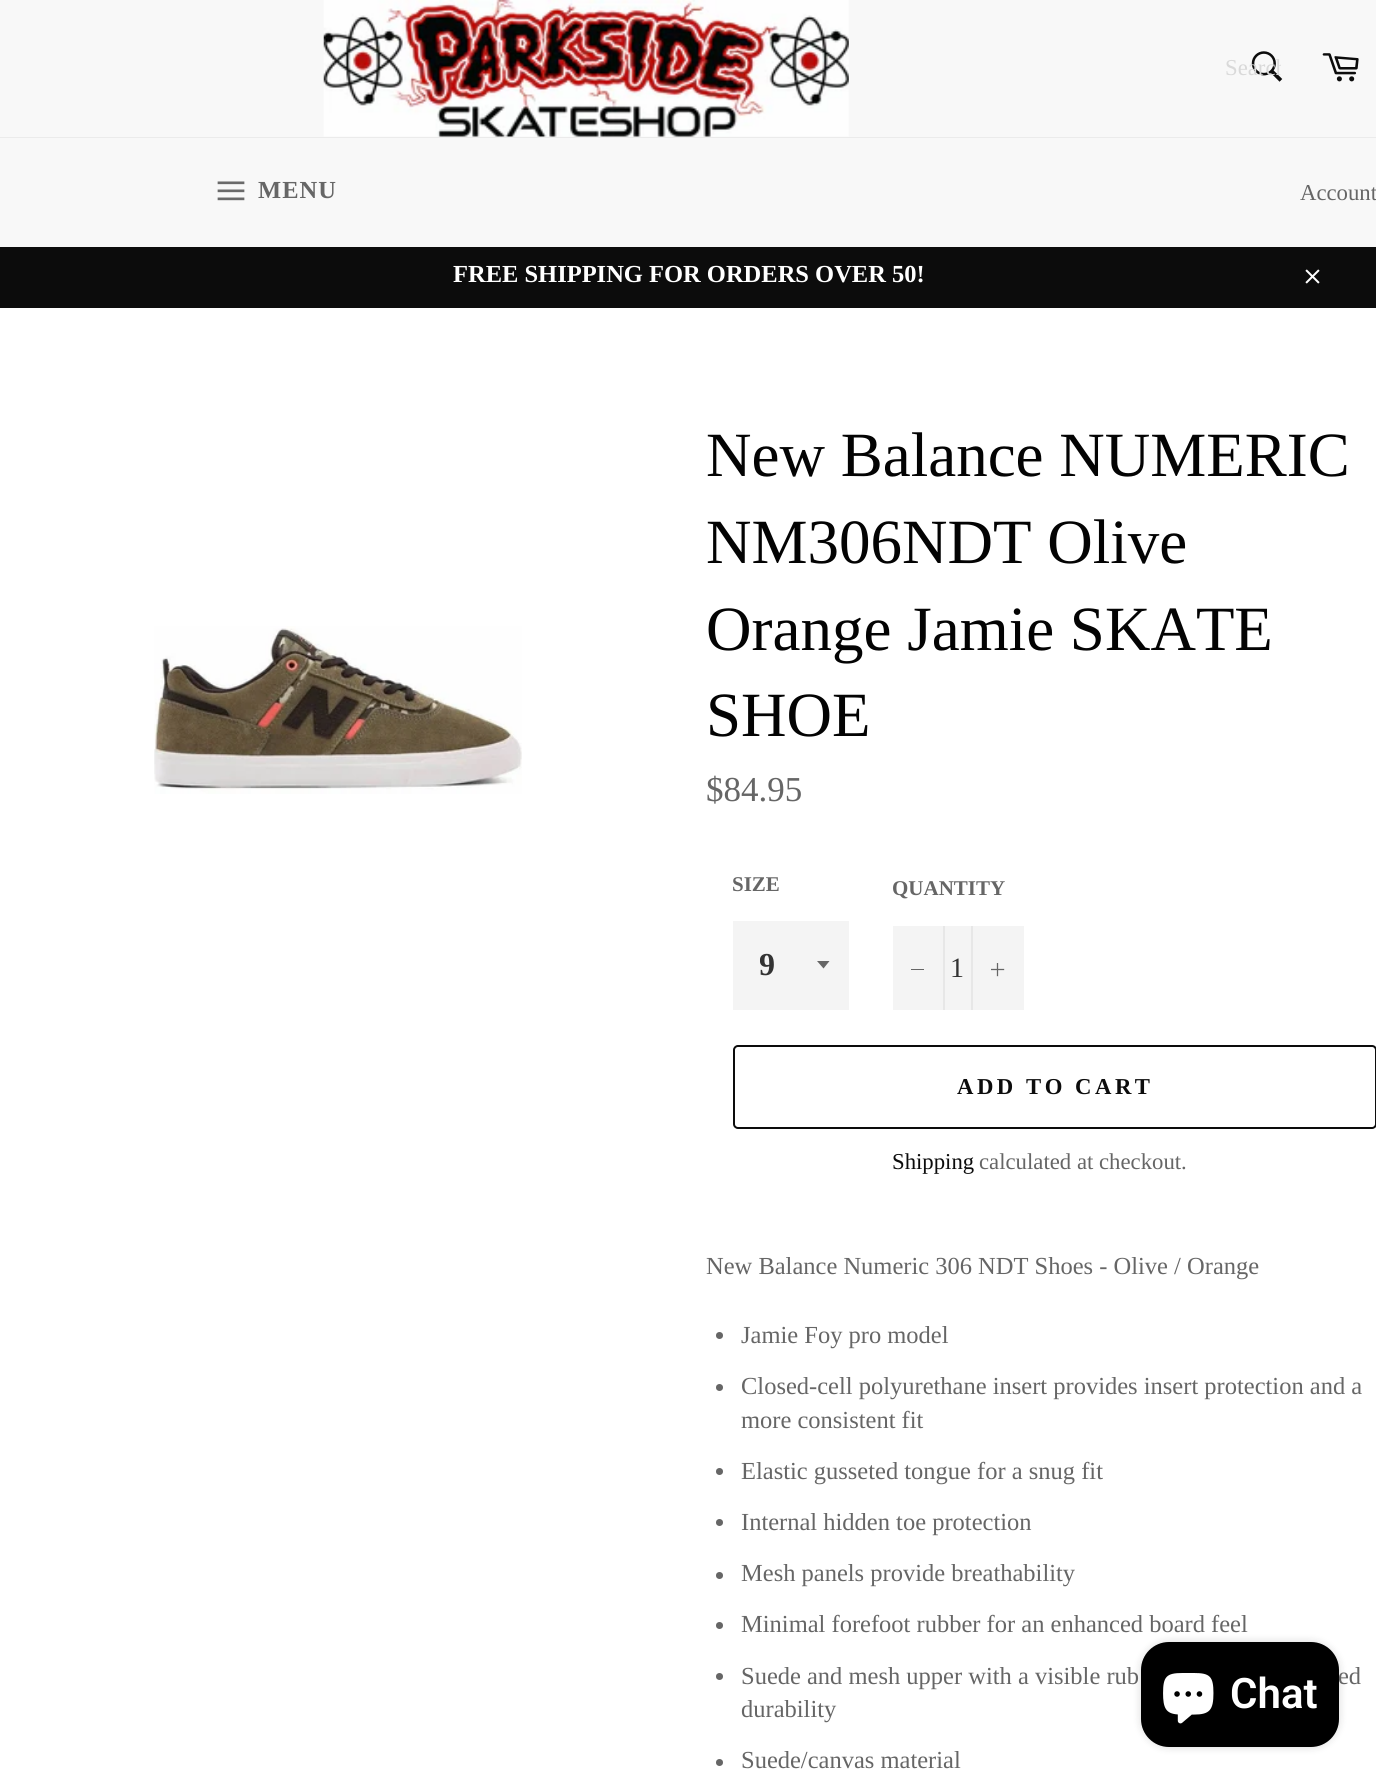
#include <cairo/cairo.h>
#include <math.h>
#include <stddef.h>

typedef struct { double x, y; const char *s; } line_t;
typedef struct { double x, y, w, h; unsigned color; } box_t;
static cairo_t *cr;

static void rgb(unsigned color)
{
	cairo_set_source_rgb(cr, (color >> 16) / 255.0, (color >> 8 & 255) / 255.0, (color & 255) / 255.0);
}

static void tracked(double x, double y, const char *s, double letter, double word)
{
	cairo_move_to(cr, x, y);
	while (*s) {
		char ch[5] = {0};
		int n = 0;
		do ch[n++] = *s++; while ((*s & 0xC0) == 0x80);
		cairo_show_text(cr, ch);
		cairo_rel_move_to(cr, letter + word * (*ch == ' '), 0);
	}
}

static void rrect(double x, double y, double w, double h, double r)
{
	cairo_new_sub_path(cr);
	cairo_arc(cr, x + w - r, y + h - r, r, 0, M_PI / 2);
	cairo_arc(cr, x + r, y + h - r, r, M_PI / 2, M_PI);
	cairo_arc(cr, x + r, y + r, r, M_PI, 1.5 * M_PI);
	cairo_arc(cr, x + w - r, y + r, r, 1.5 * M_PI, 2 * M_PI);
	cairo_close_path(cr);
}

static void soft_shadow(double x, double y, double w, double h, double r, double blur, double alpha)
{
	cairo_push_group_with_content(cr, CAIRO_CONTENT_ALPHA);
	cairo_set_operator(cr, CAIRO_OPERATOR_SOURCE);
	for (int i = 15; i >= -15 && fmin(w, h) + blur * i / 3 > 0; i -= 2) {
		double e = blur * i / 6;
		cairo_set_source_rgba(cr, 0, 0, 0, alpha * erfc((i - 1) / 8.5) / 2);
		rrect(x - e, y - e, w + 2 * e, h + 2 * e, fmax(0, fmin(r + e + blur * .6, fmin(w, h) / 2 + e)));
		cairo_fill(cr);
	}
	cairo_pattern_t *soft = cairo_pop_group(cr);
	cairo_mask(cr, soft);
	cairo_pattern_destroy(soft);
}

static void image(const char *path, double x, double y, double w, double h)
{
	cairo_surface_t *image = cairo_image_surface_create_from_png(path);
	cairo_save(cr);
	cairo_set_source_surface(cr, image, x, y);
	cairo_rectangle(cr, x, y, w, h);
	cairo_fill(cr);
	cairo_restore(cr);
	cairo_surface_destroy(image);
}

int main(void) {
	cairo_surface_t *surface = cairo_image_surface_create(CAIRO_FORMAT_RGB24, 1376, 1783);
	cr = cairo_create(surface);
	cairo_font_options_t *options = cairo_font_options_create();
	cairo_font_options_set_hint_metrics(options, CAIRO_HINT_METRICS_OFF);
	cairo_font_options_set_hint_style(options, CAIRO_HINT_STYLE_NONE);
	cairo_set_font_options(cr, options);
	cairo_set_miter_limit(cr, 4);
	rgb(0xffffff);
	cairo_paint(cr);
	rgb(0xf8f8f8);
	cairo_rectangle(cr, 0, 0, 1376, 137);
	cairo_fill(cr);
	image("img/1.png", 323, 0, 526, 137);
	image("img/2.png", 1251, 51, 32, 31);
	image("img/3.png", 1322, 53, 37, 29);
	rgb(0xebebeb);
	cairo_rectangle(cr, 0, 137, 1376, 1);
	cairo_fill(cr);
	rgb(0xf8f8f8);
	cairo_rectangle(cr, 0, 138, 1376, 109);
	cairo_fill(cr);
	image("img/4.png", 217, 181, 28, 20);
	rgb(0x0c0c0c);
	cairo_rectangle(cr, 0, 247, 1376, 61);
	cairo_fill(cr);
	image("img/5.png", 1305, 269, 15, 15);
	image("img/6.png", 154, 626, 368, 168);
	rgb(0xf4f4f4);
	cairo_rectangle(cr, 733, 921, 116, 89);
	cairo_fill(cr);
	rgb(0x666666);
	cairo_new_path(cr);
	cairo_move_to(cr, 817, 961);
	cairo_line_to(cr, 823.5, 968.5);
	cairo_line_to(cr, 829.5, 961);
	cairo_close_path(cr);
	cairo_fill(cr);
	{
		static const box_t items[] = {
			{893, 926, 131, 84, 0xf4f4f4},
			{943, 926, 2, 84, 0xe7e7e7},
			{911, 969, 13, 1, 0x666666},
			{971, 926, 2, 84, 0xe7e7e7},
		};
		for (size_t i = 0; i < sizeof items / sizeof *items; i++) {
			rgb(items[i].color);
			cairo_rectangle(cr, items[i].x, items[i].y, items[i].w, items[i].h);
			cairo_fill(cr);
		}
	}
	image("img/7.png", 991, 963, 14, 14);
	rrect(734, 1046, 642, 82, 4);
	rgb(0x0c0c0c);
	cairo_stroke(cr);
	rgb(0x666666);
	cairo_arc(cr, 719.5, 1335.5, 3.5, 0, 2 * M_PI);
	cairo_fill(cr);
	cairo_arc(cr, 719.5, 1387.5, 3.5, 0, 2 * M_PI);
	cairo_fill(cr);
	cairo_arc(cr, 719.5, 1471.5, 3.5, 0, 2 * M_PI);
	cairo_fill(cr);
	cairo_arc(cr, 719.5, 1522.5, 3.5, 0, 2 * M_PI);
	cairo_fill(cr);
	cairo_arc(cr, 719.5, 1575.5, 3.5, 0, 2 * M_PI);
	cairo_fill(cr);
	cairo_arc(cr, 719.5, 1625.5, 3.5, 0, 2 * M_PI);
	cairo_fill(cr);
	cairo_arc(cr, 719.5, 1676.5, 3.5, 0, 2 * M_PI);
	cairo_fill(cr);
	cairo_arc(cr, 719.5, 1762.5, 3.5, 0, 2 * M_PI);
	cairo_fill(cr);
	rgb(0x000000);
	soft_shadow(1141, 1642, 198, 105, 28, 4.5, 0.15);
	rgb(0x000000);
	rrect(1141, 1642, 198, 105, 28);
	cairo_fill(cr);
	image("img/8.png", 1163, 1673, 51, 51);
	cairo_save(cr);
	cairo_rectangle(cr, 1225, 54, 56, 28);
	cairo_clip(cr);
	cairo_select_font_face(cr, "Liberation Serif", CAIRO_FONT_SLANT_NORMAL, CAIRO_FONT_WEIGHT_NORMAL);
	cairo_set_font_size(cr, 22.75);
	rgb(0xd9d9d9);
	cairo_move_to(cr, 1225, 75);
	cairo_show_text(cr, "Search");
	cairo_restore(cr);
	cairo_select_font_face(cr, "Liberation Serif", CAIRO_FONT_SLANT_NORMAL, CAIRO_FONT_WEIGHT_BOLD);
	cairo_set_font_size(cr, 24.5);
	rgb(0x666666);
	tracked(258, 198, "MENU", 1, 0);
	cairo_select_font_face(cr, "Liberation Serif", CAIRO_FONT_SLANT_NORMAL, CAIRO_FONT_WEIGHT_NORMAL);
	cairo_set_font_size(cr, 22.75);
	cairo_move_to(cr, 1300, 200);
	cairo_show_text(cr, "Account");
	cairo_select_font_face(cr, "Liberation Serif", CAIRO_FONT_SLANT_NORMAL, CAIRO_FONT_WEIGHT_BOLD);
	cairo_set_font_size(cr, 24.5);
	rgb(0xffffff);
	cairo_move_to(cr, 453, 282);
	cairo_show_text(cr, "FREE SHIPPING FOR ORDERS OVER 50!");
	cairo_select_font_face(cr, "Liberation Serif", CAIRO_FONT_SLANT_NORMAL, CAIRO_FONT_WEIGHT_NORMAL);
	cairo_set_font_size(cr, 63);
	rgb(0x030303);
	{
		static const line_t items[] = {
			{706, 476, "New Balance NUMERIC"},
			{706, 563, "NM306NDT Olive"},
			{706, 650, "Orange Jamie SKATE"},
			{706, 736, "SHOE"},
		};
		for (size_t i = 0; i < sizeof items / sizeof *items; i++) {
			cairo_move_to(cr, items[i].x, items[i].y);
			cairo_show_text(cr, items[i].s);
		}
	}
	cairo_set_font_size(cr, 35);
	rgb(0x666666);
	cairo_move_to(cr, 706, 801);
	cairo_show_text(cr, "$84.95");
	cairo_select_font_face(cr, "Liberation Serif", CAIRO_FONT_SLANT_NORMAL, CAIRO_FONT_WEIGHT_BOLD);
	cairo_set_font_size(cr, 21);
	cairo_move_to(cr, 732, 891);
	cairo_show_text(cr, "SIZE");
	cairo_save(cr);
	cairo_rectangle(cr, 760, 943, 40, 44);
	cairo_clip(cr);
	cairo_set_font_size(cr, 32);
	rgb(0x333333);
	cairo_move_to(cr, 759, 975);
	cairo_show_text(cr, "9");
	cairo_restore(cr);
	cairo_move_to(cr, 892, 895);
	cairo_show_text(cr, "QUANTITY");
	cairo_select_font_face(cr, "Liberation Serif", CAIRO_FONT_SLANT_NORMAL, CAIRO_FONT_WEIGHT_NORMAL);
	cairo_set_font_size(cr, 28);
	rgb(0x333333);
	cairo_move_to(cr, 950, 977);
	cairo_show_text(cr, "1");
	cairo_select_font_face(cr, "Liberation Serif", CAIRO_FONT_SLANT_NORMAL, CAIRO_FONT_WEIGHT_BOLD);
	cairo_set_font_size(cr, 22.75);
	rgb(0x0c0c0c);
	tracked(957, 1094, "ADD TO CART", 3.5, 0);
	cairo_select_font_face(cr, "Liberation Serif", CAIRO_FONT_SLANT_NORMAL, CAIRO_FONT_WEIGHT_NORMAL);
	cairo_move_to(cr, 892, 1169);
	cairo_show_text(cr, "Shipping");
	rgb(0x666666);
	cairo_move_to(cr, 979, 1169);
	cairo_show_text(cr, "calculated at checkout.");
	cairo_set_font_size(cr, 24.5);
	{
		static const line_t items[] = {
			{706, 1274, "New Balance Numeric 306 NDT Shoes - Olive / Orange"},
			{741, 1343, "Jamie Foy pro model"},
			{741, 1394, "Closed-cell polyurethane insert provides insert protection and a"},
			{741, 1428, "more consistent fit"},
			{741, 1479, "Elastic gusseted tongue for a snug fit"},
			{741, 1530, "Internal hidden toe protection"},
			{741, 1581, "Mesh panels provide breathability"},
			{741, 1632, "Minimal forefoot rubber for an enhanced board feel"},
			{741, 1684, "Suede and mesh upper with a visible rub"},
			{1338, 1684, "ed"},
			{741, 1717, "durability"},
			{741, 1768, "Suede/canvas material"},
		};
		for (size_t i = 0; i < sizeof items / sizeof *items; i++) {
			cairo_move_to(cr, items[i].x, items[i].y);
			cairo_show_text(cr, items[i].s);
		}
	}
	cairo_select_font_face(cr, "Roboto SemiBold", CAIRO_FONT_SLANT_NORMAL, CAIRO_FONT_WEIGHT_NORMAL);
	cairo_set_font_size(cr, 42);
	rgb(0xffffff);
	cairo_move_to(cr, 1230, 1708);
	cairo_show_text(cr, "Chat");
	cairo_surface_write_to_png(surface, "page.png");
	cairo_font_options_destroy(options);
	cairo_destroy(cr);
	cairo_surface_destroy(surface);
	return 0;
}
